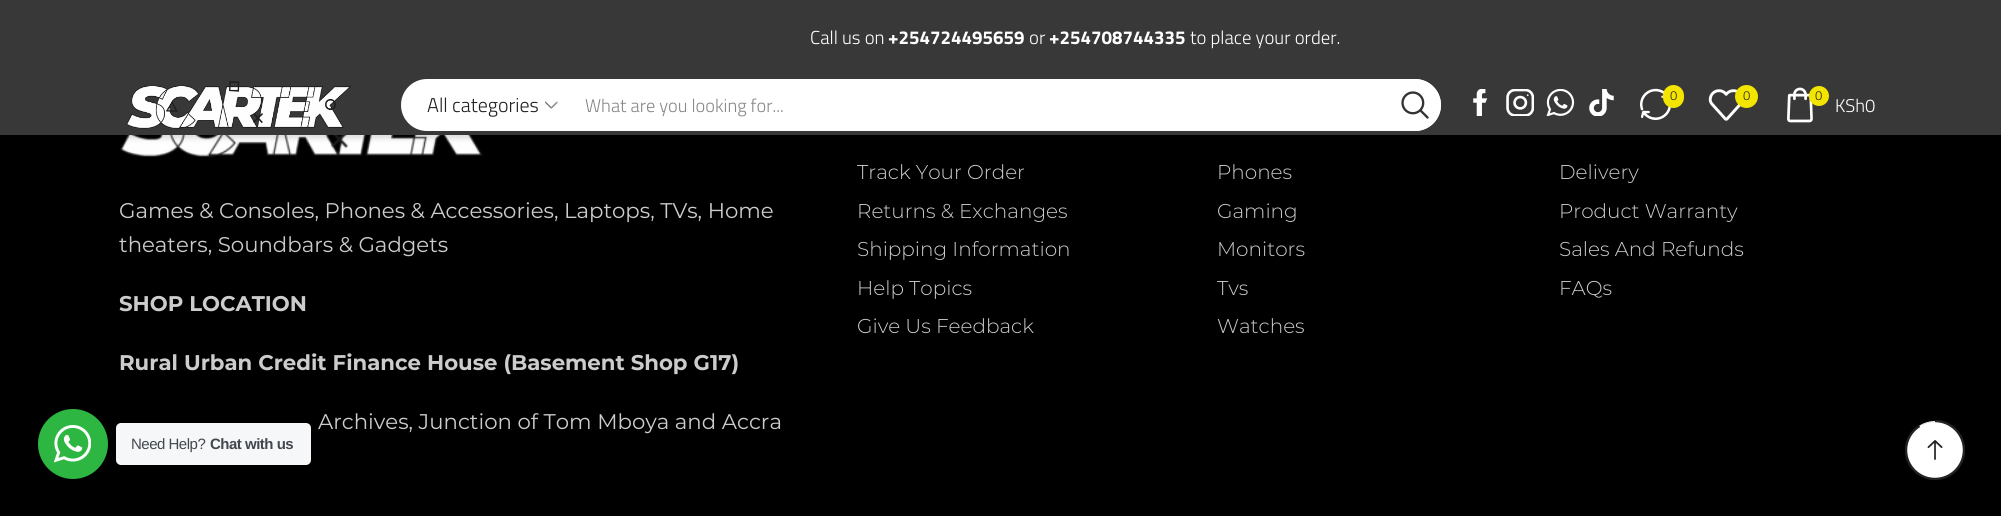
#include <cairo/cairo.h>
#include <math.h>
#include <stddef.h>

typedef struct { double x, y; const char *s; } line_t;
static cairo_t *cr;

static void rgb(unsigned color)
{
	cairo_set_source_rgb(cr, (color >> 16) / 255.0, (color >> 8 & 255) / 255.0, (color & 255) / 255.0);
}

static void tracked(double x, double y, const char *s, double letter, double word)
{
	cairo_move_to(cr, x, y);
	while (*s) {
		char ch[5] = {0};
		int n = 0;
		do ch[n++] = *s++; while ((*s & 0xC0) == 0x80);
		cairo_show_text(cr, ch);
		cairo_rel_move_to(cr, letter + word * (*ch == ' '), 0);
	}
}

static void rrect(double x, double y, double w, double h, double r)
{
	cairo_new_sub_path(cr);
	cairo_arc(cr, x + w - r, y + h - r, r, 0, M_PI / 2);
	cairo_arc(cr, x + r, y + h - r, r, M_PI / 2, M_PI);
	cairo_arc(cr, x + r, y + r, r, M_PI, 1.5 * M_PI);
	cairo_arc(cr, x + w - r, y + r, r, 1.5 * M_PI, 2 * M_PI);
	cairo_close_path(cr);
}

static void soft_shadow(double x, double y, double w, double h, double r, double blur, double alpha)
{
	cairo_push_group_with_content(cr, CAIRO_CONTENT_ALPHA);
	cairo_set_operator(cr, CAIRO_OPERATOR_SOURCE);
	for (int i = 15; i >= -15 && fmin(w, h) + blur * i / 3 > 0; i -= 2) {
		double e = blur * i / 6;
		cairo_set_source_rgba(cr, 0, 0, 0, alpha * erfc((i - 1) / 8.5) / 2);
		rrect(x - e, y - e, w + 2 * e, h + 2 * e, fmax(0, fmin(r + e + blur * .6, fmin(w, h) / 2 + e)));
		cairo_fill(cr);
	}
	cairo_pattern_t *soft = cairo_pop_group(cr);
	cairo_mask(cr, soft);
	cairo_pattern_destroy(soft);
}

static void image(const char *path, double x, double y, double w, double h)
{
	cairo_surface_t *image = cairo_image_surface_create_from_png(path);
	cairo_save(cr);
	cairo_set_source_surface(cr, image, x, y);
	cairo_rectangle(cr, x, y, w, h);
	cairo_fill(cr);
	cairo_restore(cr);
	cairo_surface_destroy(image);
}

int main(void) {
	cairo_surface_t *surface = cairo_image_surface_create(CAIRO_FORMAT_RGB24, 2001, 516);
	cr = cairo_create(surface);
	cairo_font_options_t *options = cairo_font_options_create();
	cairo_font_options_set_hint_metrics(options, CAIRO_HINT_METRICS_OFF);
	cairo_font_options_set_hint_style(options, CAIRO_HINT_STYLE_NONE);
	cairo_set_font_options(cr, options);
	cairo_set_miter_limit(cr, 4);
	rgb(0x000000);
	cairo_paint(cr);
	image("img/11.png", 120, 135, 364, 22);
	soft_shadow(-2, 133, 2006, 5, 0, 3, 0.15);
	rgb(0x383838);
	cairo_rectangle(cr, 0, 0, 2001, 135);
	cairo_fill(cr);
	image("img/1.png", 126, 81, 225, 48);
	rgb(0xffffff);
	rrect(401, 79, 1040, 52, 26);
	cairo_fill(cr);
	image("img/2.png", 545, 101, 13, 8);
	cairo_arc(cr, 1415, 105, 26, 0, 2 * M_PI);
	cairo_fill(cr);
	image("img/3.png", 1401, 91, 28, 28);
	image("img/4.png", 1473, 89, 15, 27);
	image("img/5.png", 1506, 89, 28, 27);
	image("img/6.png", 1546, 89, 29, 27);
	image("img/7.png", 1589, 89, 25, 27);
	image("img/8.png", 1640, 88, 31, 32);
	rgb(0xf3e500);
	rrect(1663, 85, 21, 23, 10.5);
	cairo_fill(cr);
	image("img/9.png", 1708, 89, 33, 32);
	cairo_arc(cr, 1746.5, 96.5, 11.5, 0, 2 * M_PI);
	cairo_fill(cr);
	image("img/10.png", 1787, 87, 26, 36);
	cairo_arc(cr, 1819, 96, 10, 0, 2 * M_PI);
	cairo_fill(cr);
	rgb(0xffffff);
	cairo_arc(cr, 1935, 450, 28.5, 0, 2 * M_PI);
	cairo_fill_preserve(cr);
	rgb(0xe1e1e1);
	cairo_set_line_width(cr, 1);
	cairo_stroke(cr);
	cairo_save(cr);
	cairo_rectangle(cr, 1905, 420, 60, 60);
	cairo_clip(cr);
	cairo_new_path(cr);
	cairo_move_to(cr, 1935, 421);
	cairo_curve_to(cr, 1951, 421, 1964, 434, 1964, 450);
	cairo_curve_to(cr, 1964, 466, 1951, 479, 1935, 479);
	cairo_curve_to(cr, 1919, 479, 1906, 466, 1906, 450);
	cairo_curve_to(cr, 1906, 440, 1911.5, 431, 1919.5, 426);
	rgb(0x222222);
	cairo_set_line_width(cr, 2.4);
	cairo_stroke(cr);
	cairo_restore(cr);
	image("img/12.png", 1927, 440, 16, 20);
	rgb(0x2db742);
	cairo_arc(cr, 73, 444, 35, 0, 2 * M_PI);
	cairo_fill(cr);
	image("img/13.png", 54, 425, 37, 38);
	rgb(0xf5f7f9);
	rrect(116, 423, 195, 42, 5);
	cairo_fill(cr);
	cairo_select_font_face(cr, "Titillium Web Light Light", CAIRO_FONT_SLANT_NORMAL, CAIRO_FONT_WEIGHT_NORMAL);
	cairo_set_font_size(cr, 18.75);
	rgb(0xffffff);
	cairo_move_to(cr, 810, 44);
	cairo_show_text(cr, "Call us on");
	cairo_select_font_face(cr, "Titillium Web", CAIRO_FONT_SLANT_NORMAL, CAIRO_FONT_WEIGHT_BOLD);
	cairo_move_to(cr, 888, 44);
	cairo_show_text(cr, "+254724495659");
	cairo_select_font_face(cr, "Titillium Web Light Light", CAIRO_FONT_SLANT_NORMAL, CAIRO_FONT_WEIGHT_NORMAL);
	cairo_move_to(cr, 1029, 44);
	cairo_show_text(cr, "or");
	cairo_select_font_face(cr, "Titillium Web", CAIRO_FONT_SLANT_NORMAL, CAIRO_FONT_WEIGHT_BOLD);
	cairo_move_to(cr, 1049, 44);
	cairo_show_text(cr, "+254708744335");
	cairo_select_font_face(cr, "Titillium Web Light Light", CAIRO_FONT_SLANT_NORMAL, CAIRO_FONT_WEIGHT_NORMAL);
	cairo_move_to(cr, 1190, 44);
	cairo_show_text(cr, "to place your order.");
	cairo_set_font_size(cr, 20);
	rgb(0x222222);
	cairo_move_to(cr, 427, 112);
	cairo_show_text(cr, "All categories");
	cairo_set_font_size(cr, 18.4);
	rgb(0x888888);
	cairo_move_to(cr, 585, 112);
	cairo_show_text(cr, "What are you looking for...");
	cairo_set_font_size(cr, 13);
	rgb(0x222222);
	{
		static const line_t items[] = {
			{1670, 100, "0"},
			{1743, 100, "0"},
			{1815, 100, "0"},
		};
		for (size_t i = 0; i < sizeof items / sizeof *items; i++) {
			cairo_move_to(cr, items[i].x, items[i].y);
			cairo_show_text(cr, items[i].s);
		}
	}
	cairo_set_font_size(cr, 18.4);
	rgb(0xffffff);
	cairo_move_to(cr, 1835, 112);
	cairo_show_text(cr, "KSh0");
	cairo_select_font_face(cr, "Montserrat", CAIRO_FONT_SLANT_NORMAL, CAIRO_FONT_WEIGHT_NORMAL);
	cairo_set_font_size(cr, 21.25);
	rgb(0xcccccc);
	cairo_move_to(cr, 119, 218);
	cairo_show_text(cr, "Games & Consoles, Phones & Accessories, Laptops, TVs, Home");
	cairo_move_to(cr, 119, 252);
	cairo_show_text(cr, "theaters, Soundbars & Gadgets");
	cairo_select_font_face(cr, "Montserrat", CAIRO_FONT_SLANT_NORMAL, CAIRO_FONT_WEIGHT_BOLD);
	cairo_move_to(cr, 119, 311);
	cairo_show_text(cr, "SHOP LOCATION");
	cairo_move_to(cr, 119, 370);
	cairo_show_text(cr, "Rural Urban Credit Finance House (Basement Shop G17)");
	cairo_select_font_face(cr, "Montserrat", CAIRO_FONT_SLANT_NORMAL, CAIRO_FONT_WEIGHT_NORMAL);
	cairo_move_to(cr, 318, 429);
	cairo_show_text(cr, "Archives, Junction of Tom Mboya and Accra");
	cairo_select_font_face(cr, "Montserrat Light", CAIRO_FONT_SLANT_NORMAL, CAIRO_FONT_WEIGHT_NORMAL);
	cairo_set_font_size(cr, 20);
	{
		static const line_t items[] = {
			{857, 179, "Track Your Order"},
			{857, 218, "Returns & Exchanges"},
			{857, 256, "Shipping Information"},
			{857, 295, "Help Topics"},
			{857, 333, "Give Us Feedback"},
			{1217, 179, "Phones"},
			{1217, 218, "Gaming"},
			{1217, 256, "Monitors"},
			{1217, 295, "Tvs"},
			{1217, 333, "Watches"},
			{1559, 179, "Delivery"},
			{1559, 218, "Product Warranty"},
			{1559, 256, "Sales And Refunds"},
			{1559, 295, "FAQs"},
		};
		for (size_t i = 0; i < sizeof items / sizeof *items; i++) {
			cairo_move_to(cr, items[i].x, items[i].y);
			cairo_show_text(cr, items[i].s);
		}
	}
	cairo_select_font_face(cr, "Liberation Sans", CAIRO_FONT_SLANT_NORMAL, CAIRO_FONT_WEIGHT_NORMAL);
	cairo_set_font_size(cr, 15);
	rgb(0x43474e);
	tracked(131, 449, "Need Help?", -0.5, 0);
	cairo_select_font_face(cr, "Liberation Sans", CAIRO_FONT_SLANT_NORMAL, CAIRO_FONT_WEIGHT_BOLD);
	tracked(210, 449, "Chat with us", -0.5, 0);
	cairo_surface_write_to_png(surface, "page.png");
	cairo_font_options_destroy(options);
	cairo_destroy(cr);
	cairo_surface_destroy(surface);
	return 0;
}
